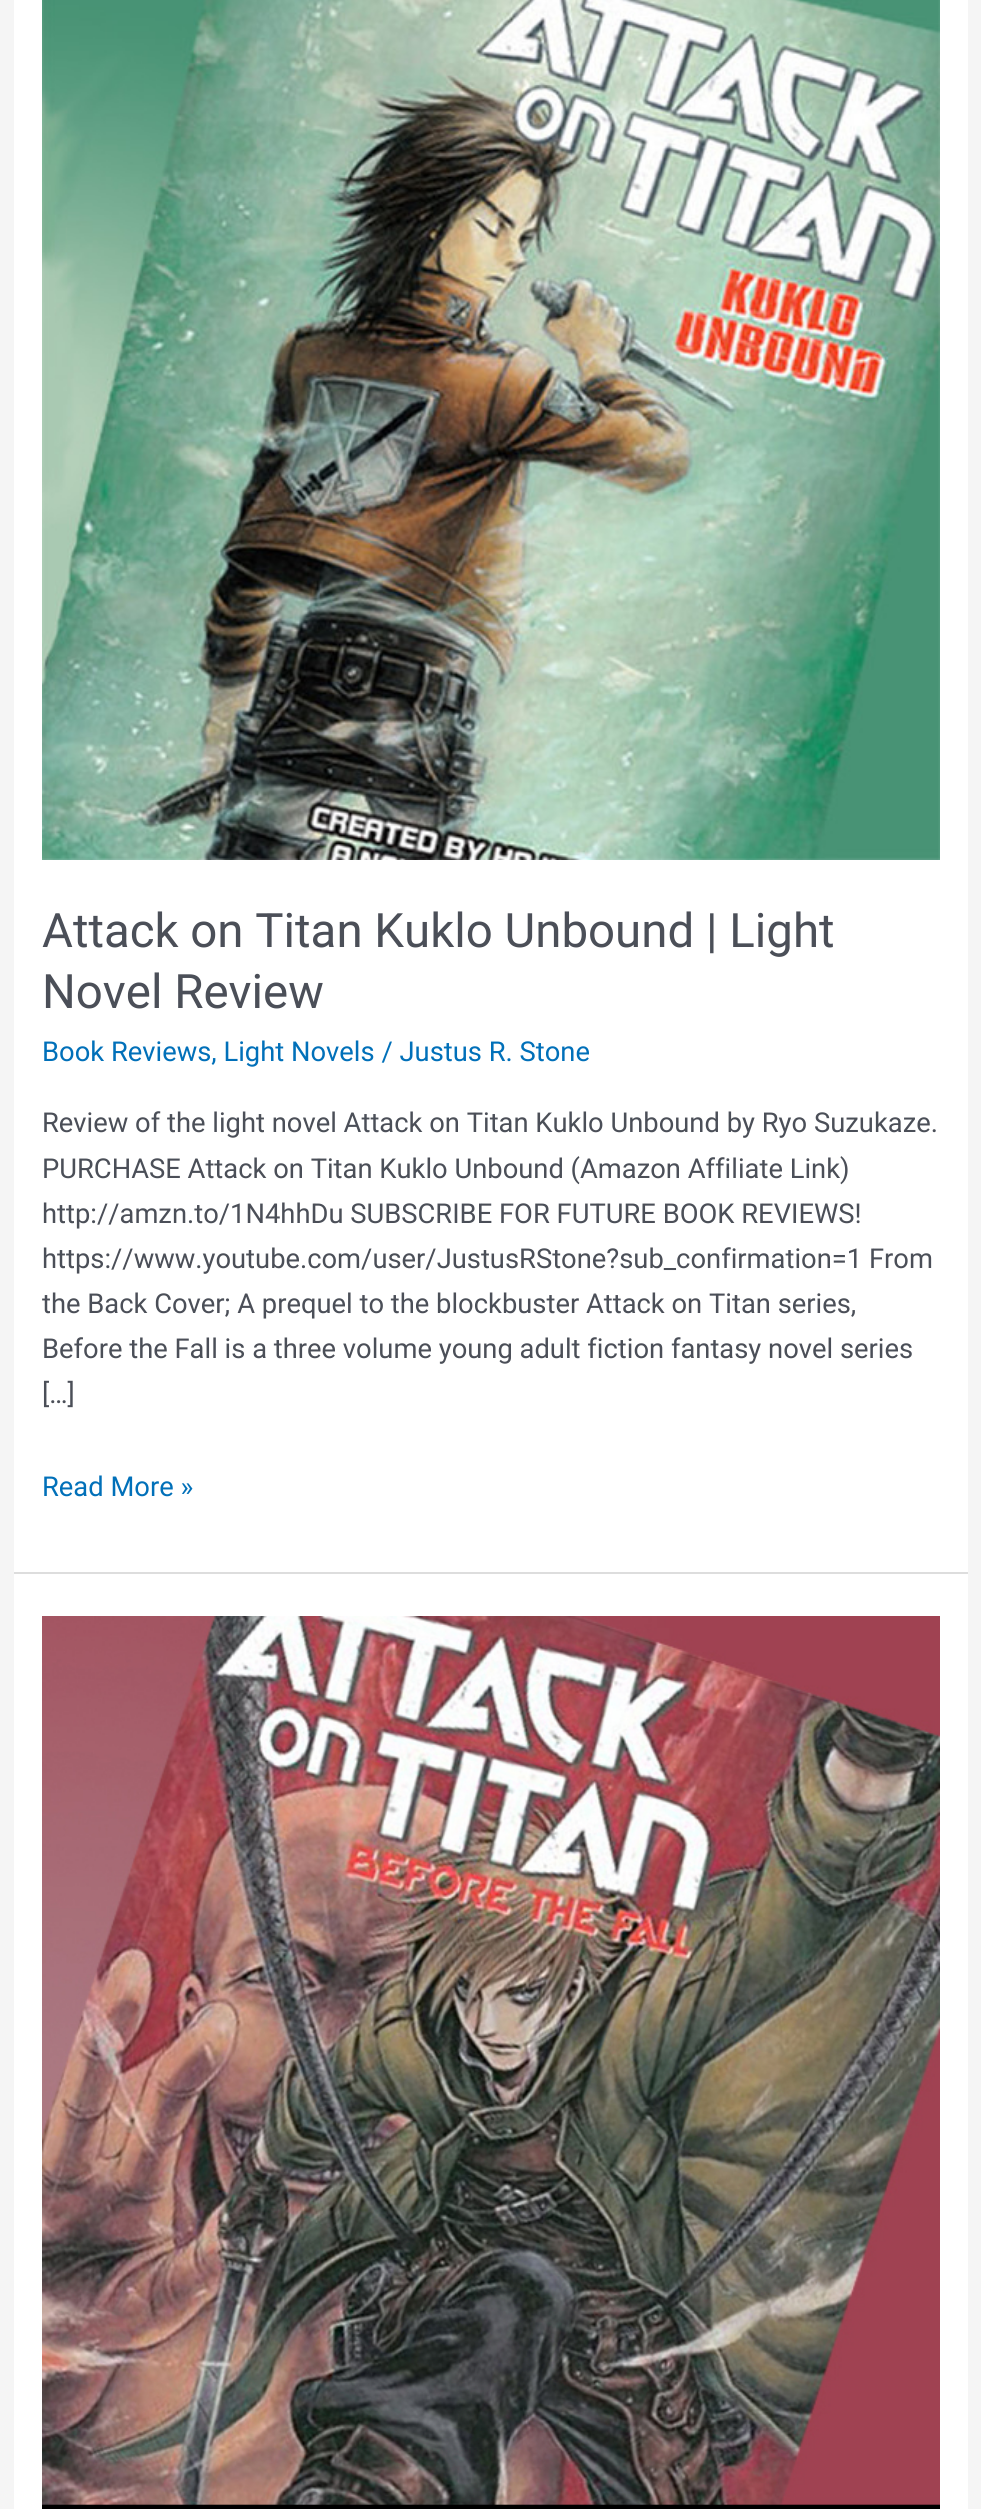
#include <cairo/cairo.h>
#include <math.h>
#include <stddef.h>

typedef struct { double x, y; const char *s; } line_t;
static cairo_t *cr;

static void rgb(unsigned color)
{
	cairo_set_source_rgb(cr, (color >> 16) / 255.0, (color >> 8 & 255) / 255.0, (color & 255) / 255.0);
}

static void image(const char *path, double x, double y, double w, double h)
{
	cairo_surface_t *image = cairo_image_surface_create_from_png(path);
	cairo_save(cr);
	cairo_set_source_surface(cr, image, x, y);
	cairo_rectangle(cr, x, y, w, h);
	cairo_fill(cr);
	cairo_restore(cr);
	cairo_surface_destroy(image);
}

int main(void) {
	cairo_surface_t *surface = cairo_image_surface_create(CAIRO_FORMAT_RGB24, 981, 2509);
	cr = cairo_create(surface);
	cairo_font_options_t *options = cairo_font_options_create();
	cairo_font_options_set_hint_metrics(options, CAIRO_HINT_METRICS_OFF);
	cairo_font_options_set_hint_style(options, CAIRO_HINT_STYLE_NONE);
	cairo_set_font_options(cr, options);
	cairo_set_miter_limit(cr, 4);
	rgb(0xf5f5f5);
	cairo_paint(cr);
	rgb(0xffffff);
	cairo_rectangle(cr, 14, 0, 954, 1572);
	cairo_fill(cr);
	rgb(0xdddddd);
	cairo_rectangle(cr, 14, 1572, 954, 2);
	cairo_fill(cr);
	image("img/1.png", 42, 0, 898, 860);
	rgb(0xffffff);
	cairo_rectangle(cr, 14, 1574, 954, 935);
	cairo_fill(cr);
	image("img/2.png", 42, 1616, 898, 893);
	cairo_select_font_face(cr, "Roboto", CAIRO_FONT_SLANT_NORMAL, CAIRO_FONT_WEIGHT_NORMAL);
	cairo_set_font_size(cr, 47.4);
	rgb(0x4b4f58);
	cairo_move_to(cr, 42, 947);
	cairo_show_text(cr, "Attack on Titan Kuklo Unbound | Light");
	cairo_move_to(cr, 42, 1008);
	cairo_show_text(cr, "Novel Review");
	cairo_set_font_size(cr, 27.35);
	rgb(0x0170b9);
	cairo_move_to(cr, 42, 1061);
	cairo_show_text(cr, "Book Reviews, Light Novels / Justus R. Stone");
	rgb(0x4b4f58);
	{
		static const line_t items[] = {
			{42, 1132, "Review of the light novel Attack on Titan Kuklo Unbound by Ryo Suzukaze."},
			{42, 1178, "PURCHASE Attack on Titan Kuklo Unbound (Amazon Affiliate Link)"},
			{42, 1223, "http://amzn.to/1N4hhDu SUBSCRIBE FOR FUTURE BOOK REVIEWS!"},
			{42, 1268, "https://www.youtube.com/user/JustusRStone?sub_confirmation=1 From"},
			{42, 1313, "the Back Cover; A prequel to the blockbuster Attack on Titan series,"},
			{42, 1358, "Before the Fall is a three volume young adult fiction fantasy novel series"},
			{42, 1403, "[…]"},
		};
		for (size_t i = 0; i < sizeof items / sizeof *items; i++) {
			cairo_move_to(cr, items[i].x, items[i].y);
			cairo_show_text(cr, items[i].s);
		}
	}
	rgb(0x0170b9);
	cairo_move_to(cr, 42, 1496);
	cairo_show_text(cr, "Read More »");
	cairo_surface_write_to_png(surface, "page.png");
	cairo_font_options_destroy(options);
	cairo_destroy(cr);
	cairo_surface_destroy(surface);
	return 0;
}
